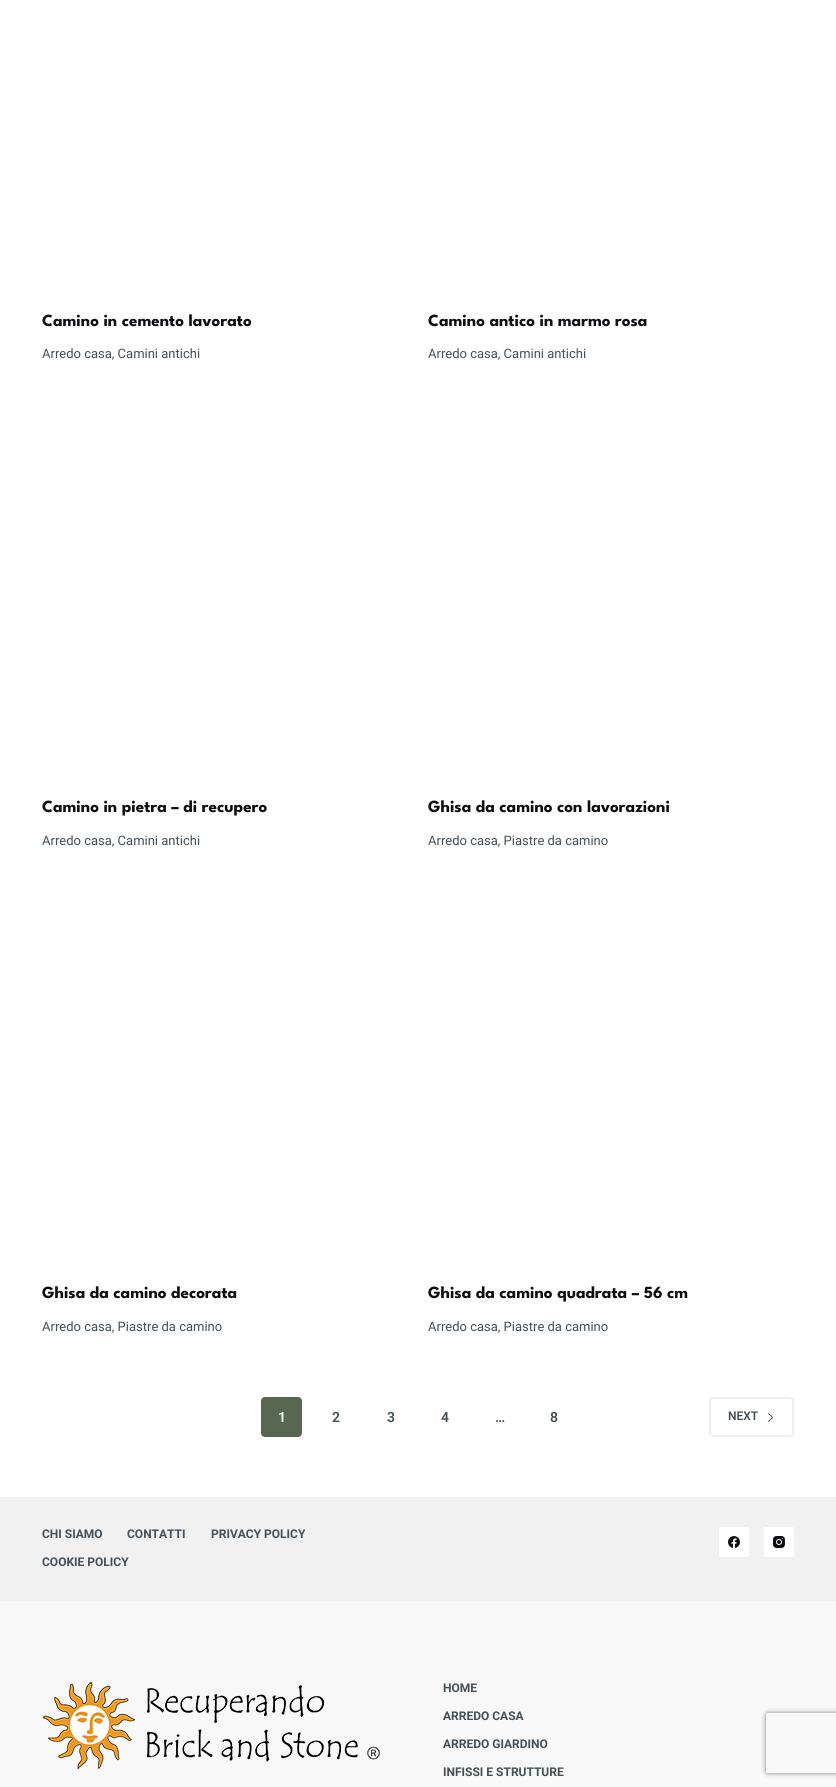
#include <cairo/cairo.h>
#include <math.h>
#include <stddef.h>

typedef struct { double x, y; const char *s; } line_t;
static cairo_t *cr;

static void rgb(unsigned color)
{
	cairo_set_source_rgb(cr, (color >> 16) / 255.0, (color >> 8 & 255) / 255.0, (color & 255) / 255.0);
}

static void rrect(double x, double y, double w, double h, double r)
{
	cairo_new_sub_path(cr);
	cairo_arc(cr, x + w - r, y + h - r, r, 0, M_PI / 2);
	cairo_arc(cr, x + r, y + h - r, r, M_PI / 2, M_PI);
	cairo_arc(cr, x + r, y + r, r, M_PI, 1.5 * M_PI);
	cairo_arc(cr, x + w - r, y + r, r, 1.5 * M_PI, 2 * M_PI);
	cairo_close_path(cr);
}

static void soft_shadow(double x, double y, double w, double h, double r, double blur, double alpha)
{
	cairo_push_group_with_content(cr, CAIRO_CONTENT_ALPHA);
	cairo_set_operator(cr, CAIRO_OPERATOR_SOURCE);
	for (int i = 15; i >= -15 && fmin(w, h) + blur * i / 3 > 0; i -= 2) {
		double e = blur * i / 6;
		cairo_set_source_rgba(cr, 0, 0, 0, alpha * erfc((i - 1) / 8.5) / 2);
		rrect(x - e, y - e, w + 2 * e, h + 2 * e, fmax(0, fmin(r + e + blur * .6, fmin(w, h) / 2 + e)));
		cairo_fill(cr);
	}
	cairo_pattern_t *soft = cairo_pop_group(cr);
	cairo_mask(cr, soft);
	cairo_pattern_destroy(soft);
}

static void image(const char *path, double x, double y, double w, double h)
{
	cairo_surface_t *image = cairo_image_surface_create_from_png(path);
	cairo_save(cr);
	cairo_set_source_surface(cr, image, x, y);
	cairo_rectangle(cr, x, y, w, h);
	cairo_fill(cr);
	cairo_restore(cr);
	cairo_surface_destroy(image);
}

int main(void) {
	cairo_surface_t *surface = cairo_image_surface_create(CAIRO_FORMAT_RGB24, 836, 1787);
	cr = cairo_create(surface);
	cairo_font_options_t *options = cairo_font_options_create();
	cairo_font_options_set_hint_metrics(options, CAIRO_HINT_METRICS_OFF);
	cairo_font_options_set_hint_style(options, CAIRO_HINT_STYLE_NONE);
	cairo_set_font_options(cr, options);
	cairo_set_miter_limit(cr, 4);
	rgb(0xffffff);
	cairo_paint(cr);
	rgb(0x586750);
	rrect(261, 1397, 41, 40, 4);
	cairo_fill(cr);
	rrect(710, 1398, 83, 38, 3);
	rgb(0xeeeeee);
	cairo_stroke(cr);
	image("img/1.png", 768, 1413, 5, 9);
	rgb(0xf8f8f8);
	cairo_rectangle(cr, 0, 1601, 836, 186);
	cairo_fill(cr);
	rgb(0xf1f1f1);
	cairo_rectangle(cr, 0, 1497, 836, 104);
	cairo_fill(cr);
	rgb(0xffffff);
	rrect(719, 1527, 30, 30, 2);
	cairo_fill(cr);
	image("img/2.png", 728, 1536, 12, 12);
	rrect(764, 1527, 30, 30, 2);
	cairo_fill(cr);
	image("img/3.png", 773, 1536, 12, 12);
	image("img/4.png", 43, 1682, 337, 87);
	cairo_save(cr);
	cairo_set_fill_rule(cr, CAIRO_FILL_RULE_EVEN_ODD);
	cairo_new_path(cr);
	cairo_move_to(cr, 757, 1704);
	cairo_line_to(cr, 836, 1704);
	cairo_line_to(cr, 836, 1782);
	cairo_line_to(cr, 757, 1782);
	cairo_close_path(cr);
	cairo_move_to(cr, 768, 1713);
	cairo_line_to(cr, 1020, 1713);
	cairo_curve_to(cr, 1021, 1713, 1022, 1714, 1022, 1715);
	cairo_line_to(cr, 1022, 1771);
	cairo_curve_to(cr, 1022, 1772, 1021, 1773, 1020, 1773);
	cairo_line_to(cr, 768, 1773);
	cairo_curve_to(cr, 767, 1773, 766, 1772, 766, 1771);
	cairo_line_to(cr, 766, 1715);
	cairo_curve_to(cr, 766, 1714, 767, 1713, 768, 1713);
	cairo_close_path(cr);
	cairo_clip(cr);
	rgb(0x808080);
	soft_shadow(766, 1713, 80, 60, 2, 2.5, 1);
	cairo_restore(cr);
	cairo_select_font_face(cr, "League Spartan Thin", CAIRO_FONT_SLANT_NORMAL, CAIRO_FONT_WEIGHT_NORMAL);
	cairo_set_font_size(cr, 17);
	rgb(0x0e0d12);
	cairo_move_to(cr, 42, 326);
	cairo_show_text(cr, "Camino in cemento lavorato");
	cairo_select_font_face(cr, "Roboto", CAIRO_FONT_SLANT_NORMAL, CAIRO_FONT_WEIGHT_NORMAL);
	cairo_set_font_size(cr, 13);
	rgb(0x434f58);
	cairo_move_to(cr, 42, 358);
	cairo_show_text(cr, "Arredo casa, Camini antichi");
	cairo_select_font_face(cr, "League Spartan Thin", CAIRO_FONT_SLANT_NORMAL, CAIRO_FONT_WEIGHT_NORMAL);
	cairo_set_font_size(cr, 17);
	rgb(0x0e0d12);
	cairo_move_to(cr, 428, 326);
	cairo_show_text(cr, "Camino antico in marmo rosa");
	cairo_select_font_face(cr, "Roboto", CAIRO_FONT_SLANT_NORMAL, CAIRO_FONT_WEIGHT_NORMAL);
	cairo_set_font_size(cr, 13);
	rgb(0x434f58);
	cairo_move_to(cr, 428, 358);
	cairo_show_text(cr, "Arredo casa, Camini antichi");
	cairo_select_font_face(cr, "League Spartan Thin", CAIRO_FONT_SLANT_NORMAL, CAIRO_FONT_WEIGHT_NORMAL);
	cairo_set_font_size(cr, 17);
	rgb(0x0e0d12);
	cairo_move_to(cr, 42, 812);
	cairo_show_text(cr, "Camino in pietra – di recupero");
	cairo_select_font_face(cr, "Roboto", CAIRO_FONT_SLANT_NORMAL, CAIRO_FONT_WEIGHT_NORMAL);
	cairo_set_font_size(cr, 13);
	rgb(0x434f58);
	cairo_move_to(cr, 42, 845);
	cairo_show_text(cr, "Arredo casa, Camini antichi");
	cairo_select_font_face(cr, "League Spartan Thin", CAIRO_FONT_SLANT_NORMAL, CAIRO_FONT_WEIGHT_NORMAL);
	cairo_set_font_size(cr, 17);
	rgb(0x0e0d12);
	cairo_move_to(cr, 428, 812);
	cairo_show_text(cr, "Ghisa da camino con lavorazioni");
	cairo_select_font_face(cr, "Roboto", CAIRO_FONT_SLANT_NORMAL, CAIRO_FONT_WEIGHT_NORMAL);
	cairo_set_font_size(cr, 13);
	rgb(0x434f58);
	cairo_move_to(cr, 428, 845);
	cairo_show_text(cr, "Arredo casa, Piastre da camino");
	cairo_select_font_face(cr, "League Spartan Thin", CAIRO_FONT_SLANT_NORMAL, CAIRO_FONT_WEIGHT_NORMAL);
	cairo_set_font_size(cr, 17);
	rgb(0x0e0d12);
	cairo_move_to(cr, 42, 1298);
	cairo_show_text(cr, "Ghisa da camino decorata");
	cairo_select_font_face(cr, "Roboto", CAIRO_FONT_SLANT_NORMAL, CAIRO_FONT_WEIGHT_NORMAL);
	cairo_set_font_size(cr, 13);
	rgb(0x434f58);
	cairo_move_to(cr, 42, 1331);
	cairo_show_text(cr, "Arredo casa, Piastre da camino");
	cairo_select_font_face(cr, "League Spartan Thin", CAIRO_FONT_SLANT_NORMAL, CAIRO_FONT_WEIGHT_NORMAL);
	cairo_set_font_size(cr, 17);
	rgb(0x0e0d12);
	cairo_move_to(cr, 428, 1298);
	cairo_show_text(cr, "Ghisa da camino quadrata – 56 cm");
	cairo_select_font_face(cr, "Roboto", CAIRO_FONT_SLANT_NORMAL, CAIRO_FONT_WEIGHT_NORMAL);
	cairo_set_font_size(cr, 13);
	rgb(0x434f58);
	cairo_move_to(cr, 428, 1331);
	cairo_show_text(cr, "Arredo casa, Piastre da camino");
	cairo_select_font_face(cr, "Roboto SemiBold", CAIRO_FONT_SLANT_NORMAL, CAIRO_FONT_WEIGHT_NORMAL);
	cairo_set_font_size(cr, 14);
	rgb(0xffffff);
	cairo_move_to(cr, 278, 1422);
	cairo_show_text(cr, "1");
	rgb(0x434f58);
	{
		static const line_t items[] = {
			{332, 1422, "2"},
			{387, 1422, "3"},
			{441, 1422, "4"},
			{495, 1422, "…"},
			{550, 1422, "8"},
		};
		for (size_t i = 0; i < sizeof items / sizeof *items; i++) {
			cairo_move_to(cr, items[i].x, items[i].y);
			cairo_show_text(cr, items[i].s);
		}
	}
	cairo_set_font_size(cr, 12);
	cairo_move_to(cr, 728, 1420);
	cairo_show_text(cr, "NEXT");
	cairo_select_font_face(cr, "Roboto", CAIRO_FONT_SLANT_NORMAL, CAIRO_FONT_WEIGHT_BOLD);
	{
		static const line_t items[] = {
			{42, 1538, "CHI SIAMO"},
			{127, 1538, "CONTATTI"},
			{211, 1538, "PRIVACY POLICY"},
			{42, 1566, "COOKIE POLICY"},
			{443, 1692, "HOME"},
			{443, 1720, "ARREDO CASA"},
			{443, 1748, "ARREDO GIARDINO"},
			{443, 1776, "INFISSI E STRUTTURE"},
		};
		for (size_t i = 0; i < sizeof items / sizeof *items; i++) {
			cairo_move_to(cr, items[i].x, items[i].y);
			cairo_show_text(cr, items[i].s);
		}
	}
	cairo_surface_write_to_png(surface, "page.png");
	cairo_font_options_destroy(options);
	cairo_destroy(cr);
	cairo_surface_destroy(surface);
	return 0;
}
